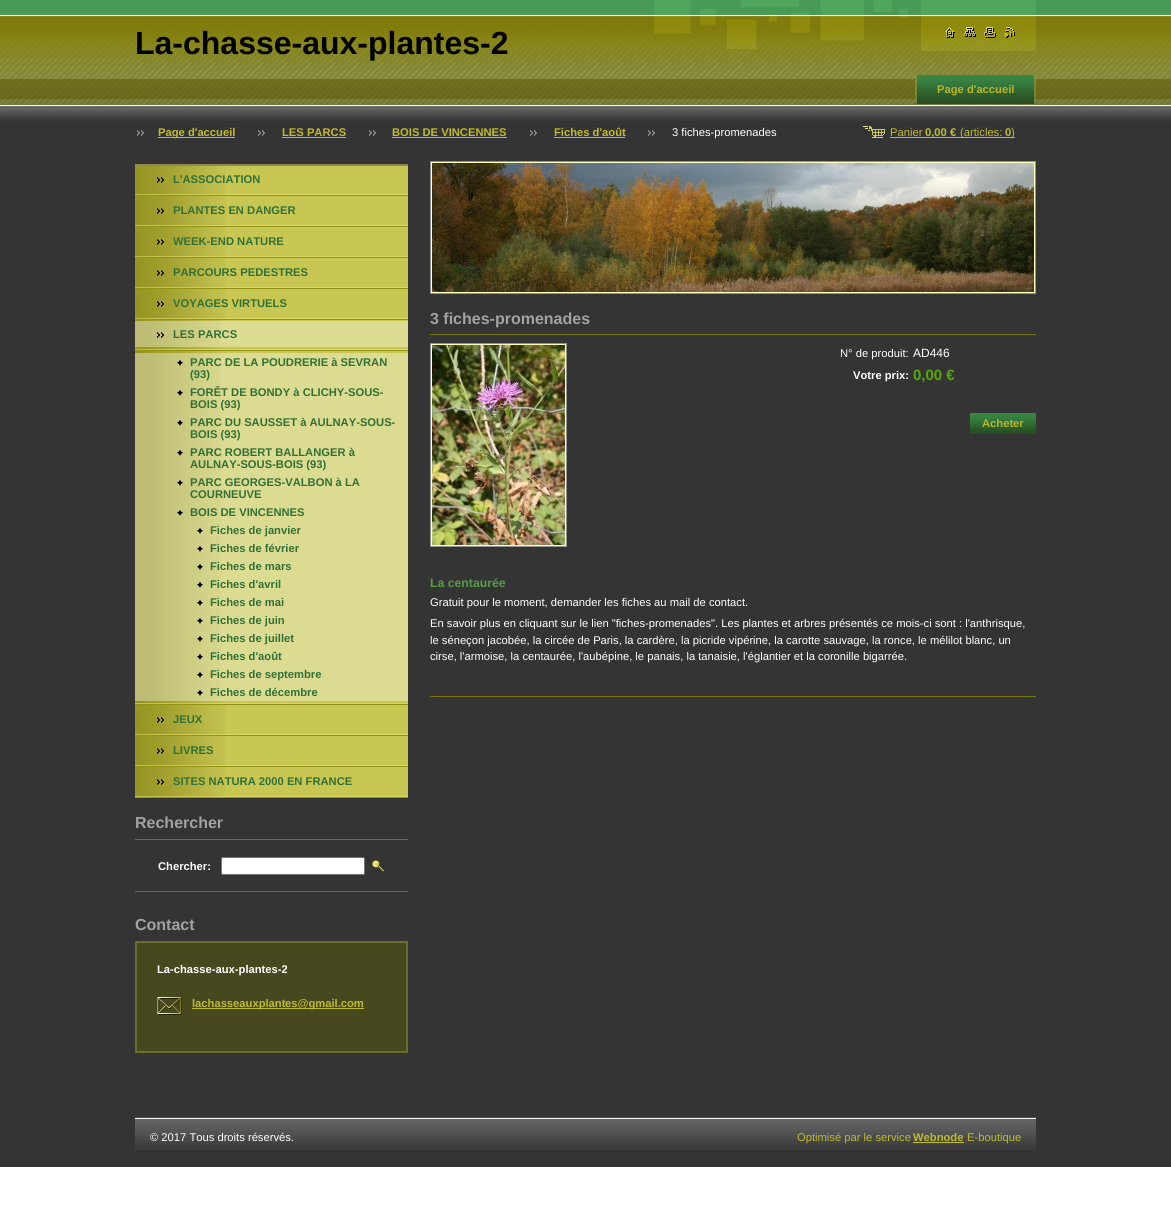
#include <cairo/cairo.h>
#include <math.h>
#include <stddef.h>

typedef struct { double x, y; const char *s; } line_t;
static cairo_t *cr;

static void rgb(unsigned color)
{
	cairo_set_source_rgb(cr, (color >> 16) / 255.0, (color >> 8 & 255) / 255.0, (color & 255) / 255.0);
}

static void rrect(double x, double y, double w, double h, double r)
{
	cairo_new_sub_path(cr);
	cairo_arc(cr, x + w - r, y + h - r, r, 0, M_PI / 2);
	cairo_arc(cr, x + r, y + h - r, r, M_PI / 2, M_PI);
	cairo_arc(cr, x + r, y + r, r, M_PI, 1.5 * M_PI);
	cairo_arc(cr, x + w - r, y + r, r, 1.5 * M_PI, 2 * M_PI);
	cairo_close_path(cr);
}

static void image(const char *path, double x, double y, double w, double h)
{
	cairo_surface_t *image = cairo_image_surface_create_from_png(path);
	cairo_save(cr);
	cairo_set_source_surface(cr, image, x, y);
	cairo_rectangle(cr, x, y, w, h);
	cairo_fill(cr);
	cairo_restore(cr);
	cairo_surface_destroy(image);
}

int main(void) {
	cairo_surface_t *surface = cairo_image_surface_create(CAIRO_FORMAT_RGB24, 1171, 1207);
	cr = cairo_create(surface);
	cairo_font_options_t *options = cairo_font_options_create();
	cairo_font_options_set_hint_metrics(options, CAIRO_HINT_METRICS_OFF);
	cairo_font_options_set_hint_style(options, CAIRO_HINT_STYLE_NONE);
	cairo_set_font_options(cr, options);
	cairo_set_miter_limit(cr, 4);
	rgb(0xffffff);
	cairo_paint(cr);
	rgb(0x343434);
	cairo_rectangle(cr, 0, 121, 1171, 1046);
	cairo_fill(cr);
	image("img/1.png", 0, 0, 1171, 121);
	image("img/2.png", 135, 0, 901, 105);
	image("img/3.png", 945, 27, 10, 11);
	image("img/4.png", 964, 27, 12, 10);
	image("img/5.png", 984, 27, 12, 11);
	image("img/6.png", 1004, 27, 11, 11);
	image("img/7.png", 915, 69, 121, 36);
	image("img/8.png", 917, 75, 117, 29);
	image("img/9.png", 135, 105, 901, 16);
	image("img/10.png", 137, 130, 7, 6);
	rgb(0xbfbb2f);
	cairo_rectangle(cr, 158, 137, 77, 1);
	cairo_fill(cr);
	image("img/10.png", 258, 130, 7, 6);
	cairo_rectangle(cr, 282, 137, 64, 1);
	cairo_fill(cr);
	image("img/10.png", 369, 130, 7, 6);
	cairo_rectangle(cr, 392, 137, 115, 1);
	cairo_fill(cr);
	image("img/10.png", 530, 130, 7, 6);
	cairo_rectangle(cr, 554, 137, 71, 1);
	cairo_fill(cr);
	image("img/10.png", 648, 130, 7, 6);
	image("img/11.png", 863, 126, 22, 12);
	cairo_rectangle(cr, 890, 137, 125, 1);
	cairo_fill(cr);
	rgb(0xc8c754);
	cairo_rectangle(cr, 226, 166, 182, 628);
	cairo_fill(cr);
	image("img/12.png", 135, 166, 91, 628);
	image("img/13.png", 135, 161, 273, 5);
	image("img/14.png", 157, 177, 7, 6);
	image("img/15.png", 135, 194, 273, 2);
	image("img/14.png", 157, 208, 7, 6);
	image("img/15.png", 135, 225, 273, 2);
	image("img/14.png", 157, 239, 7, 6);
	image("img/15.png", 135, 256, 273, 2);
	image("img/14.png", 157, 270, 7, 6);
	image("img/15.png", 135, 287, 273, 2);
	image("img/14.png", 157, 301, 7, 6);
	image("img/15.png", 135, 318, 273, 2);
	image("img/17.png", 135, 321, 86, 26);
	image("img/16.png", 157, 332, 7, 6);
	rgb(0xdcdb92);
	cairo_rectangle(cr, 221, 321, 187, 26);
	cairo_fill(cr);
	image("img/15.png", 135, 349, 273, 2);
	image("img/19.png", 135, 353, 86, 30);
	image("img/18.png", 177, 359, 6, 7);
	cairo_rectangle(cr, 221, 353, 187, 348);
	cairo_fill(cr);
	image("img/19.png", 135, 383, 86, 30);
	image("img/18.png", 177, 389, 6, 7);
	image("img/19.png", 135, 413, 86, 30);
	image("img/18.png", 177, 419, 6, 7);
	image("img/19.png", 135, 443, 86, 30);
	image("img/18.png", 177, 449, 6, 7);
	image("img/19.png", 135, 473, 86, 30);
	image("img/18.png", 177, 479, 6, 7);
	image("img/20.png", 135, 503, 86, 18);
	image("img/18.png", 177, 509, 6, 7);
	image("img/20.png", 135, 521, 86, 18);
	image("img/21.png", 197, 527, 6, 7);
	image("img/20.png", 135, 539, 86, 18);
	image("img/21.png", 197, 545, 6, 7);
	image("img/20.png", 135, 557, 86, 18);
	image("img/21.png", 197, 563, 6, 7);
	image("img/20.png", 135, 575, 86, 18);
	image("img/21.png", 197, 581, 6, 7);
	image("img/20.png", 135, 593, 86, 18);
	image("img/21.png", 197, 599, 6, 7);
	image("img/20.png", 135, 611, 86, 18);
	image("img/21.png", 197, 617, 6, 7);
	image("img/20.png", 135, 629, 86, 18);
	image("img/21.png", 197, 635, 6, 7);
	image("img/20.png", 135, 647, 86, 18);
	image("img/21.png", 197, 653, 6, 7);
	image("img/20.png", 135, 665, 86, 18);
	image("img/21.png", 197, 671, 6, 7);
	image("img/20.png", 135, 683, 86, 18);
	image("img/21.png", 197, 689, 6, 7);
	image("img/15.png", 135, 703, 273, 2);
	image("img/14.png", 157, 717, 7, 6);
	image("img/15.png", 135, 734, 273, 2);
	image("img/14.png", 157, 748, 7, 6);
	image("img/15.png", 135, 765, 273, 2);
	image("img/14.png", 157, 779, 7, 6);
	image("img/22.png", 135, 794, 273, 4);
	rgb(0x737602);
	cairo_rectangle(cr, 135, 839, 273, 1);
	cairo_fill(cr);
	cairo_rectangle(cr, 135, 891, 273, 1);
	cairo_fill(cr);
	rgb(0xffffff);
	rrect(221.5, 857.5, 143, 17, 1.5);
	cairo_fill_preserve(cr);
	rgb(0x767676);
	cairo_set_line_width(cr, 1);
	cairo_stroke(cr);
	image("img/23.png", 372, 860, 12, 12);
	rgb(0x48481e);
	cairo_rectangle(cr, 136, 942, 271, 110);
	cairo_fill_preserve(cr);
	rgb(0x6c6c2c);
	cairo_set_line_width(cr, 2);
	cairo_stroke(cr);
	image("img/24.png", 157, 997, 25, 18);
	rgb(0xbfbb2f);
	cairo_rectangle(cr, 192, 1008, 93, 1);
	cairo_fill(cr);
	cairo_rectangle(cr, 285, 1008, 79, 1);
	cairo_fill(cr);
	cairo_rectangle(cr, 430.5, 161.5, 605, 132);
	rgb(0x939393);
	cairo_set_line_width(cr, 1);
	cairo_stroke(cr);
	cairo_rectangle(cr, 431.5, 162.5, 603, 130);
	rgb(0xffffbe);
	cairo_stroke(cr);
	image("img/25.png", 432, 163, 602, 129);
	rgb(0x737602);
	cairo_rectangle(cr, 430, 334, 606, 1);
	cairo_fill(cr);
	cairo_rectangle(cr, 430, 696, 606, 1);
	cairo_fill(cr);
	cairo_rectangle(cr, 430.5, 343.5, 136, 203);
	rgb(0x939393);
	cairo_stroke(cr);
	cairo_rectangle(cr, 431.5, 344.5, 134, 201);
	rgb(0xffffbe);
	cairo_stroke(cr);
	image("img/26.png", 432, 345, 133, 200);
	rgb(0x284f22);
	cairo_rectangle(cr, 970, 431, 66, 3);
	cairo_fill(cr);
	image("img/27.png", 970, 413, 66, 18);
	image("img/28.png", 135, 1117, 901, 33);
	rgb(0xbfbb2f);
	cairo_rectangle(cr, 913, 1142, 51, 1);
	cairo_fill(cr);
	cairo_select_font_face(cr, "Liberation Sans", CAIRO_FONT_SLANT_NORMAL, CAIRO_FONT_WEIGHT_BOLD);
	cairo_set_font_size(cr, 32);
	rgb(0x000000);
	cairo_move_to(cr, 135, 54);
	cairo_show_text(cr, "La-chasse-aux-plantes-2");
	cairo_set_font_size(cr, 11.2);
	rgb(0xb9b62b);
	cairo_move_to(cr, 937, 93);
	cairo_show_text(cr, "Page d'accueil");
	rgb(0xbfbb2f);
	{
		static const line_t items[] = {
			{158, 136, "Page d'accueil"},
			{282, 136, "LES PARCS"},
			{392, 136, "BOIS DE VINCENNES"},
			{554, 136, "Fiches d'août"},
		};
		for (size_t i = 0; i < sizeof items / sizeof *items; i++) {
			cairo_move_to(cr, items[i].x, items[i].y);
			cairo_show_text(cr, items[i].s);
		}
	}
	cairo_select_font_face(cr, "Liberation Sans", CAIRO_FONT_SLANT_NORMAL, CAIRO_FONT_WEIGHT_NORMAL);
	rgb(0xffffff);
	cairo_move_to(cr, 672, 136);
	cairo_show_text(cr, "3 fiches-promenades");
	rgb(0xbfbb2f);
	cairo_move_to(cr, 890, 136);
	cairo_show_text(cr, "Panier");
	cairo_select_font_face(cr, "Liberation Sans", CAIRO_FONT_SLANT_NORMAL, CAIRO_FONT_WEIGHT_BOLD);
	cairo_move_to(cr, 925, 136);
	cairo_show_text(cr, "0,00 €");
	cairo_select_font_face(cr, "Liberation Sans", CAIRO_FONT_SLANT_NORMAL, CAIRO_FONT_WEIGHT_NORMAL);
	cairo_move_to(cr, 960, 136);
	cairo_show_text(cr, "(articles:");
	cairo_select_font_face(cr, "Liberation Sans", CAIRO_FONT_SLANT_NORMAL, CAIRO_FONT_WEIGHT_BOLD);
	cairo_move_to(cr, 1005, 136);
	cairo_show_text(cr, "0");
	cairo_select_font_face(cr, "Liberation Sans", CAIRO_FONT_SLANT_NORMAL, CAIRO_FONT_WEIGHT_NORMAL);
	cairo_move_to(cr, 1011, 136);
	cairo_show_text(cr, ")");
	cairo_select_font_face(cr, "Liberation Sans", CAIRO_FONT_SLANT_NORMAL, CAIRO_FONT_WEIGHT_BOLD);
	rgb(0x327036);
	{
		static const line_t items[] = {
			{173, 183, "L'ASSOCIATION"},
			{173, 214, "PLANTES EN DANGER"},
			{173, 245, "WEEK-END NATURE"},
			{173, 276, "PARCOURS PEDESTRES"},
			{173, 307, "VOYAGES VIRTUELS"},
			{173, 338, "LES PARCS"},
			{190, 366, "PARC DE LA POUDRERIE à SEVRAN"},
			{190, 378, "(93)"},
			{190, 396, "FORÊT DE BONDY à CLICHY-SOUS-"},
			{190, 408, "BOIS (93)"},
			{190, 426, "PARC DU SAUSSET à AULNAY-SOUS-"},
			{190, 438, "BOIS (93)"},
			{190, 456, "PARC ROBERT BALLANGER à"},
			{190, 468, "AULNAY-SOUS-BOIS (93)"},
			{190, 486, "PARC GEORGES-VALBON à LA"},
			{190, 498, "COURNEUVE"},
			{190, 516, "BOIS DE VINCENNES"},
			{210, 534, "Fiches de janvier"},
			{210, 552, "Fiches de février"},
			{210, 570, "Fiches de mars"},
			{210, 588, "Fiches d'avril"},
			{210, 606, "Fiches de mai"},
			{210, 624, "Fiches de juin"},
			{210, 642, "Fiches de juillet"},
			{210, 660, "Fiches d'août"},
			{210, 678, "Fiches de septembre"},
			{210, 696, "Fiches de décembre"},
			{173, 723, "JEUX"},
			{173, 754, "LIVRES"},
			{173, 785, "SITES NATURA 2000 EN FRANCE"},
		};
		for (size_t i = 0; i < sizeof items / sizeof *items; i++) {
			cairo_move_to(cr, items[i].x, items[i].y);
			cairo_show_text(cr, items[i].s);
		}
	}
	cairo_set_font_size(cr, 16);
	rgb(0xa2a2a2);
	cairo_move_to(cr, 135, 828);
	cairo_show_text(cr, "Rechercher");
	cairo_set_font_size(cr, 11.2);
	rgb(0xffffff);
	cairo_move_to(cr, 158, 870);
	cairo_show_text(cr, "Chercher:");
	cairo_set_font_size(cr, 16);
	rgb(0xa2a2a2);
	cairo_move_to(cr, 135, 930);
	cairo_show_text(cr, "Contact");
	cairo_set_font_size(cr, 11.2);
	rgb(0xffffff);
	cairo_move_to(cr, 157, 973);
	cairo_show_text(cr, "La-chasse-aux-plantes-2");
	rgb(0xbfbb2f);
	cairo_move_to(cr, 192, 1007);
	cairo_show_text(cr, "lachasseauxplant");
	cairo_move_to(cr, 285, 1007);
	cairo_show_text(cr, "es@gmail.com");
	cairo_set_font_size(cr, 16);
	rgb(0xa2a2a2);
	cairo_move_to(cr, 430, 324);
	cairo_show_text(cr, "3 fiches-promenades");
	cairo_select_font_face(cr, "Liberation Sans", CAIRO_FONT_SLANT_NORMAL, CAIRO_FONT_WEIGHT_NORMAL);
	cairo_set_font_size(cr, 11.2);
	rgb(0xffffff);
	cairo_move_to(cr, 840, 357);
	cairo_show_text(cr, "N° de produit:");
	cairo_set_font_size(cr, 12);
	cairo_move_to(cr, 913, 357);
	cairo_show_text(cr, "AD446");
	cairo_select_font_face(cr, "Liberation Sans", CAIRO_FONT_SLANT_NORMAL, CAIRO_FONT_WEIGHT_BOLD);
	cairo_set_font_size(cr, 11.2);
	cairo_move_to(cr, 853, 379);
	cairo_show_text(cr, "Votre prix:");
	cairo_set_font_size(cr, 15);
	rgb(0x56aa04);
	cairo_move_to(cr, 913, 380);
	cairo_show_text(cr, "0,00 €");
	cairo_set_font_size(cr, 11.2);
	rgb(0xb9b62b);
	cairo_move_to(cr, 982, 427);
	cairo_show_text(cr, "Acheter");
	cairo_set_font_size(cr, 12.25);
	rgb(0x579a48);
	cairo_move_to(cr, 430, 587);
	cairo_show_text(cr, "La centaurée");
	cairo_select_font_face(cr, "Liberation Sans", CAIRO_FONT_SLANT_NORMAL, CAIRO_FONT_WEIGHT_NORMAL);
	cairo_set_font_size(cr, 11.2);
	rgb(0xffffff);
	{
		static const line_t items[] = {
			{430, 606, "Gratuit pour le moment, demander les fiches au mail de contact."},
			{430, 627, "En savoir plus en cliquant sur le lien \"fiches-promenades\". Les plantes et arbres présentés ce mois-ci sont : l'anthrisque,"},
			{430, 644, "le séneçon jacobée, la circée de Paris, la cardère, la picride vipérine, la carotte sauvage, la ronce, le mélilot blanc, un"},
			{430, 660, "cirse, l'armoise, la centaurée, l'aubépine, le panais, la tanaisie, l'églantier et la coronille bigarrée."},
			{150, 1141, "© 2017 Tous droits réservés."},
		};
		for (size_t i = 0; i < sizeof items / sizeof *items; i++) {
			cairo_move_to(cr, items[i].x, items[i].y);
			cairo_show_text(cr, items[i].s);
		}
	}
	rgb(0xbfbb2f);
	cairo_move_to(cr, 797, 1141);
	cairo_show_text(cr, "Optimisé par le service");
	cairo_select_font_face(cr, "Liberation Sans", CAIRO_FONT_SLANT_NORMAL, CAIRO_FONT_WEIGHT_BOLD);
	cairo_move_to(cr, 913, 1141);
	cairo_show_text(cr, "Webnode");
	cairo_select_font_face(cr, "Liberation Sans", CAIRO_FONT_SLANT_NORMAL, CAIRO_FONT_WEIGHT_NORMAL);
	cairo_move_to(cr, 967, 1141);
	cairo_show_text(cr, "E-boutique");
	cairo_surface_write_to_png(surface, "page.png");
	cairo_font_options_destroy(options);
	cairo_destroy(cr);
	cairo_surface_destroy(surface);
	return 0;
}
